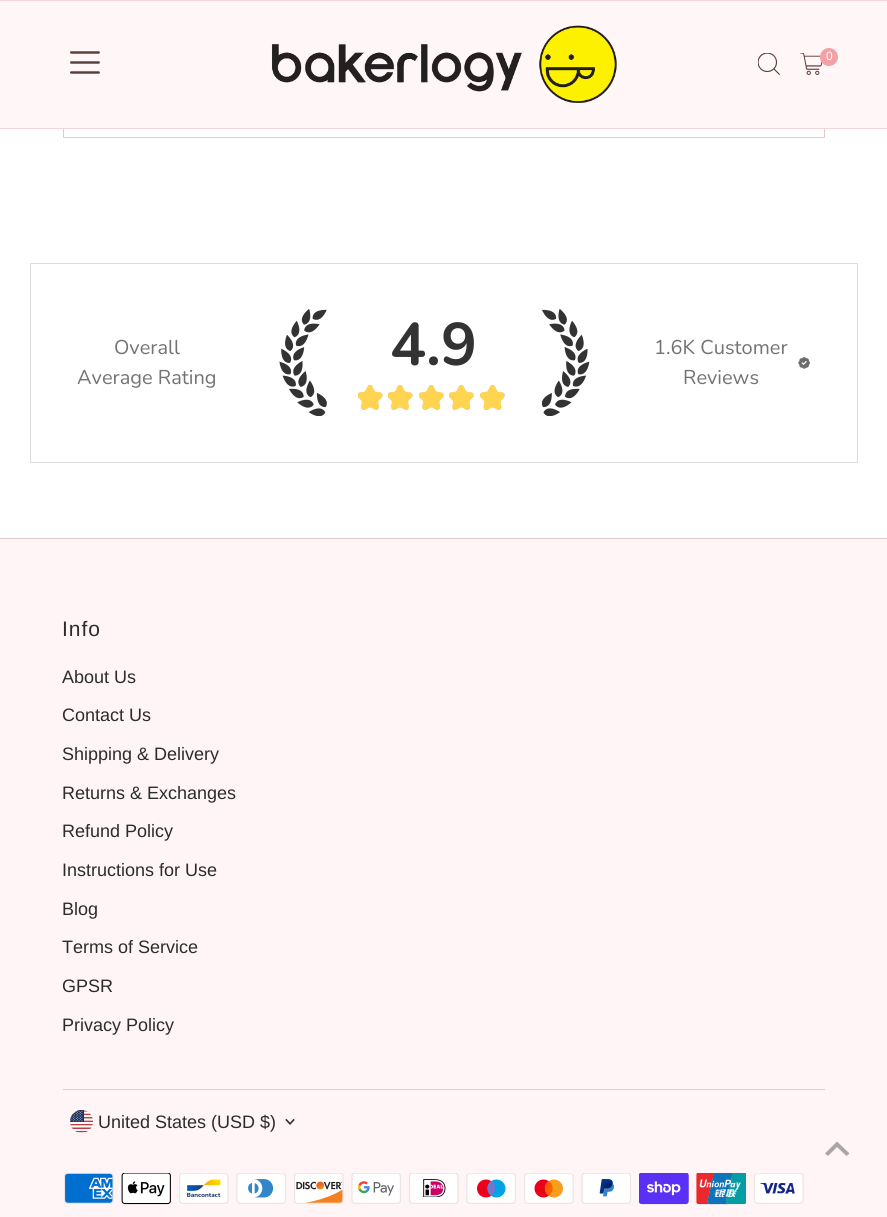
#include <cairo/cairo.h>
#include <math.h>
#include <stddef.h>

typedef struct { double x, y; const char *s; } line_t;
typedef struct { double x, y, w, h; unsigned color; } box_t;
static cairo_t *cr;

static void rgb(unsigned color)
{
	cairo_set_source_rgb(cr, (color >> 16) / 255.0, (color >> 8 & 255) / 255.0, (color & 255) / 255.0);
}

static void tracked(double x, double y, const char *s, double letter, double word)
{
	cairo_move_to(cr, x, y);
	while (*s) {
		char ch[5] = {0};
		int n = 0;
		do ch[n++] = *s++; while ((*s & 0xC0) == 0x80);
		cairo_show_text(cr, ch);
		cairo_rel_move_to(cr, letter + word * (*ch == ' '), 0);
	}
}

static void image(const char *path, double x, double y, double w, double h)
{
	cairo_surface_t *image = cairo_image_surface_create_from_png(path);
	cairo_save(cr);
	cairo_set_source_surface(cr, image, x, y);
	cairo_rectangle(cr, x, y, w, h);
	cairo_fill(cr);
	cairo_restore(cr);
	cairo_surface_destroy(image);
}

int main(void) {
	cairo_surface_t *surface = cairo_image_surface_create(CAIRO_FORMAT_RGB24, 887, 1217);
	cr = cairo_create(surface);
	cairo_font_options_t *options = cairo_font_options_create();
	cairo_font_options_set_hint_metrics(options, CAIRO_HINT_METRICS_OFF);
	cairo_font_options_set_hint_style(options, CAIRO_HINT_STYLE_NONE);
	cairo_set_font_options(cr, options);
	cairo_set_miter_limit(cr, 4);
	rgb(0xffffff);
	cairo_paint(cr);
	cairo_rectangle(cr, 63.5, 75.5, 761, 62);
	rgb(0xe4cace);
	cairo_set_line_width(cr, 1);
	cairo_stroke(cr);
	{
		static const box_t items[] = {
			{0, 1, 887, 127, 0xfff7f7},
			{0, 0, 887, 1, 0xf0d6d9},
			{0, 128, 887, 1, 0xf0d6d9},
		};
		for (size_t i = 0; i < sizeof items / sizeof *items; i++) {
			rgb(items[i].color);
			cairo_rectangle(cr, items[i].x, items[i].y, items[i].w, items[i].h);
			cairo_fill(cr);
		}
	}
	image("img/1.png", 70, 51, 30, 23);
	image("img/2.png", 271, 25, 346, 79);
	image("img/3.png", 758, 53, 22, 22);
	image("img/4.png", 800, 53, 23, 22);
	rgb(0xf5a0a7);
	cairo_arc(cr, 829, 57, 9, 0, 2 * M_PI);
	cairo_fill(cr);
	cairo_rectangle(cr, 30.5, 263.5, 827, 199);
	rgb(0xdddddd);
	cairo_stroke(cr);
	image("img/5.png", 279, 309, 48, 107);
	image("img/6.png", 358, 385, 25, 25);
	image("img/6.png", 388, 385, 25, 25);
	image("img/7.png", 419, 385, 25, 25);
	image("img/7.png", 449, 385, 25, 25);
	image("img/8.png", 480, 385, 25, 25);
	image("img/9.png", 358, 385, 25, 25);
	image("img/9.png", 388, 385, 25, 25);
	image("img/10.png", 419, 385, 25, 25);
	image("img/10.png", 449, 385, 25, 25);
	image("img/11.png", 480, 385, 23, 25);
	image("img/12.png", 541, 309, 49, 107);
	image("img/13.png", 798, 357, 12, 12);
	{
		static const box_t items[] = {
			{0, 539, 887, 678, 0xfff5f6},
			{0, 538, 887, 1, 0xe4cace},
			{63, 1089, 762, 1, 0xe4cace},
		};
		for (size_t i = 0; i < sizeof items / sizeof *items; i++) {
			rgb(items[i].color);
			cairo_rectangle(cr, items[i].x, items[i].y, items[i].w, items[i].h);
			cairo_fill(cr);
		}
	}
	image("img/14.png", 70, 1110, 23, 23);
	image("img/15.png", 285, 1119, 10, 6);
	image("img/16.png", 64, 1173, 50, 31);
	image("img/17.png", 121, 1173, 50, 32);
	image("img/18.png", 179, 1173, 50, 31);
	image("img/19.png", 236, 1173, 50, 31);
	image("img/20.png", 294, 1173, 50, 31);
	image("img/21.png", 351, 1173, 50, 31);
	image("img/22.png", 409, 1173, 50, 31);
	image("img/23.png", 466, 1173, 50, 31);
	image("img/24.png", 524, 1173, 50, 31);
	image("img/25.png", 581, 1173, 50, 31);
	image("img/26.png", 639, 1173, 50, 32);
	image("img/27.png", 696, 1173, 50, 32);
	image("img/28.png", 754, 1173, 50, 31);
	rgb(0xaba5a5);
	cairo_new_path(cr);
	cairo_move_to(cr, 837, 1141.5);
	cairo_line_to(cr, 825, 1153.5);
	cairo_line_to(cr, 828, 1156);
	cairo_line_to(cr, 837, 1147);
	cairo_line_to(cr, 846.5, 1156);
	cairo_line_to(cr, 849.5, 1153.5);
	cairo_close_path(cr);
	cairo_fill(cr);
	cairo_select_font_face(cr, "Liberation Sans", CAIRO_FONT_SLANT_NORMAL, CAIRO_FONT_WEIGHT_NORMAL);
	cairo_set_font_size(cr, 12);
	rgb(0xffffff);
	cairo_move_to(cr, 826, 60);
	cairo_show_text(cr, "0");
	cairo_select_font_face(cr, "Nunito", CAIRO_FONT_SLANT_NORMAL, CAIRO_FONT_WEIGHT_NORMAL);
	cairo_set_font_size(cr, 20);
	rgb(0x737373);
	cairo_move_to(cr, 114, 354);
	cairo_show_text(cr, "Overall");
	cairo_move_to(cr, 77, 384);
	cairo_show_text(cr, "Average Rating");
	cairo_select_font_face(cr, "Nunito", CAIRO_FONT_SLANT_NORMAL, CAIRO_FONT_WEIGHT_BOLD);
	cairo_set_font_size(cr, 60);
	rgb(0x333333);
	cairo_move_to(cr, 390, 365);
	cairo_show_text(cr, "4.9");
	cairo_select_font_face(cr, "Nunito", CAIRO_FONT_SLANT_NORMAL, CAIRO_FONT_WEIGHT_NORMAL);
	cairo_set_font_size(cr, 20);
	rgb(0x737373);
	cairo_move_to(cr, 654, 354);
	cairo_show_text(cr, "1.6K Customer");
	cairo_move_to(cr, 683, 384);
	cairo_show_text(cr, "Reviews");
	cairo_select_font_face(cr, "Liberation Sans", CAIRO_FONT_SLANT_NORMAL, CAIRO_FONT_WEIGHT_NORMAL);
	cairo_set_font_size(cr, 21);
	rgb(0x2c2c2c);
	tracked(62, 636, "Info", 1, 0);
	cairo_set_font_size(cr, 18);
	{
		static const line_t items[] = {
			{62, 683, "About Us"},
			{62, 721, "Contact Us"},
			{62, 760, "Shipping & Delivery"},
			{62, 799, "Returns & Exchanges"},
			{62, 837, "Refund Policy"},
			{62, 876, "Instructions for Use"},
			{62, 915, "Blog"},
			{62, 953, "Terms of Service"},
			{62, 992, "GPSR"},
			{62, 1031, "Privacy Policy"},
			{98, 1128, "United States (USD $)"},
		};
		for (size_t i = 0; i < sizeof items / sizeof *items; i++) {
			cairo_move_to(cr, items[i].x, items[i].y);
			cairo_show_text(cr, items[i].s);
		}
	}
	cairo_surface_write_to_png(surface, "page.png");
	cairo_font_options_destroy(options);
	cairo_destroy(cr);
	cairo_surface_destroy(surface);
	return 0;
}
